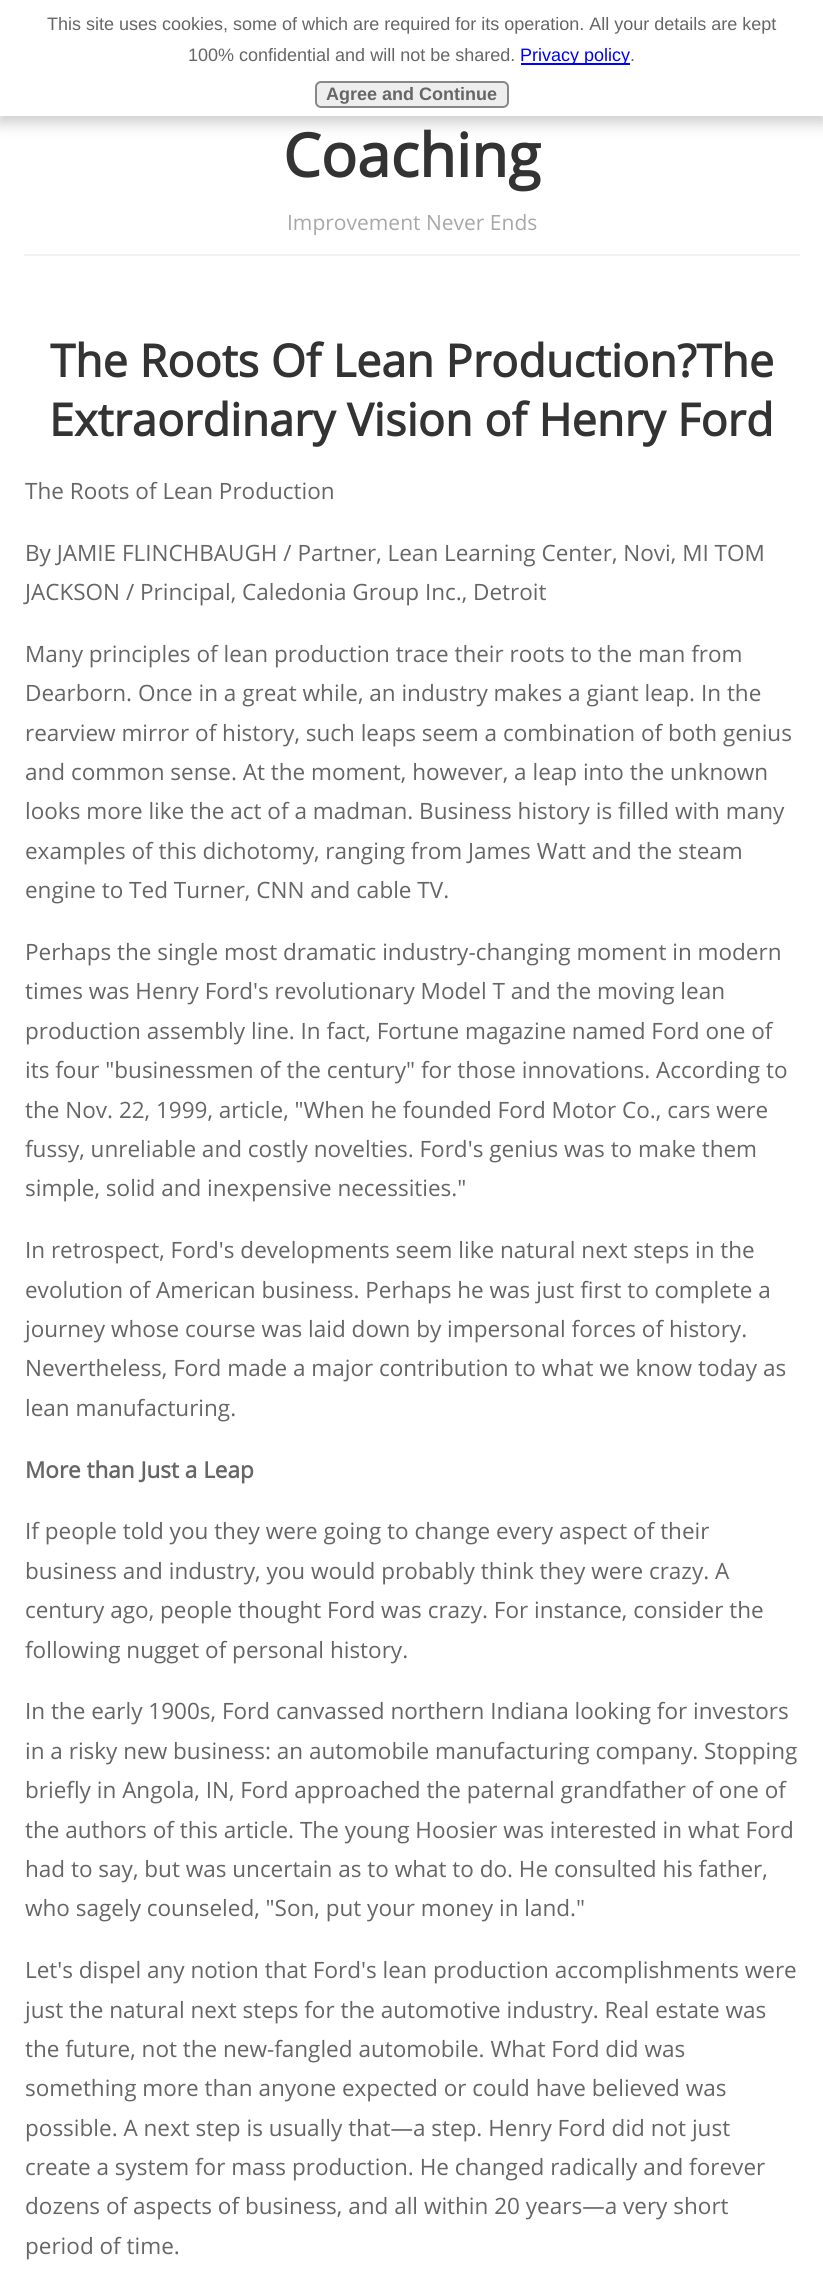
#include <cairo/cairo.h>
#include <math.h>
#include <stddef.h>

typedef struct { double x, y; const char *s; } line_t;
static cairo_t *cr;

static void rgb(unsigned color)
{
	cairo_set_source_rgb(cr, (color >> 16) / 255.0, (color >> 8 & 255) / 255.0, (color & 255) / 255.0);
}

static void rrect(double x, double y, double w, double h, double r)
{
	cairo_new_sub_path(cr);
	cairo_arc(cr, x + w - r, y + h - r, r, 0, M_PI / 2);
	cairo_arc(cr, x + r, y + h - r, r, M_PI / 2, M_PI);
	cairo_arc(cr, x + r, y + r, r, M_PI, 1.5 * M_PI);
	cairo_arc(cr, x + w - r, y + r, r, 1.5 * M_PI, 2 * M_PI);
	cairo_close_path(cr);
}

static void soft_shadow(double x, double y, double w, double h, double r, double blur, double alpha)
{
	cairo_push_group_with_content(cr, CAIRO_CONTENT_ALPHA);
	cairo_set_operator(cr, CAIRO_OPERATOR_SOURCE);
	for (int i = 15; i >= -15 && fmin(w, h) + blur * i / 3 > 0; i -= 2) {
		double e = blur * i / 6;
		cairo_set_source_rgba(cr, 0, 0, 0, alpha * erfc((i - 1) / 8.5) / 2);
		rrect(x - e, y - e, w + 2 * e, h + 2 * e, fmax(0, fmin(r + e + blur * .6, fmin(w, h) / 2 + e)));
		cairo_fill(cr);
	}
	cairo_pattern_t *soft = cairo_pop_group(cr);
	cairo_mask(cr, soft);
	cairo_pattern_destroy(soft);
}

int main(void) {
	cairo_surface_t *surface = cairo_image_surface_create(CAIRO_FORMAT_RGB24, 823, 2282);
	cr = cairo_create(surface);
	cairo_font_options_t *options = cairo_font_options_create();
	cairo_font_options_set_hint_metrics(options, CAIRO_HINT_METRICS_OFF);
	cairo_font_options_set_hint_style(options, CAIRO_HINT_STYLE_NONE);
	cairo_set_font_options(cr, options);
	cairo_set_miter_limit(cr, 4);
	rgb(0xffffff);
	cairo_paint(cr);
	rgb(0x000000);
	soft_shadow(-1, 5, 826, 118, 0, 7.5, 0.2);
	rgb(0xffffff);
	cairo_rectangle(cr, 0, 0, 823, 116);
	cairo_fill(cr);
	rgb(0x0000ff);
	cairo_rectangle(cr, 521, 63, 109, 2);
	cairo_fill(cr);
	rgb(0xeeeeee);
	rrect(316, 82, 192, 25, 5);
	cairo_fill_preserve(cr);
	rgb(0x888888);
	cairo_stroke(cr);
	rgb(0xf2f2f2);
	cairo_rectangle(cr, 24, 254, 776, 2);
	cairo_fill(cr);
	cairo_select_font_face(cr, "Liberation Sans", CAIRO_FONT_SLANT_NORMAL, CAIRO_FONT_WEIGHT_NORMAL);
	cairo_set_font_size(cr, 18);
	rgb(0x666666);
	cairo_move_to(cr, 47, 30);
	cairo_show_text(cr, "This site uses cookies, some of which are required for its operation. All your details are kept");
	cairo_move_to(cr, 188, 61);
	cairo_show_text(cr, "100% confidential and will not be shared.");
	rgb(0x0000ff);
	cairo_move_to(cr, 520, 61);
	cairo_show_text(cr, "Privacy policy");
	rgb(0x666666);
	cairo_move_to(cr, 630, 61);
	cairo_show_text(cr, ".");
	cairo_select_font_face(cr, "Liberation Sans", CAIRO_FONT_SLANT_NORMAL, CAIRO_FONT_WEIGHT_BOLD);
	cairo_move_to(cr, 326, 100);
	cairo_show_text(cr, "Agree and Continue");
	cairo_select_font_face(cr, "Open Sans", CAIRO_FONT_SLANT_NORMAL, CAIRO_FONT_WEIGHT_BOLD);
	cairo_set_font_size(cr, 60);
	rgb(0x333333);
	cairo_move_to(cr, 283, 177);
	cairo_show_text(cr, "Coaching");
	cairo_select_font_face(cr, "Open Sans", CAIRO_FONT_SLANT_NORMAL, CAIRO_FONT_WEIGHT_NORMAL);
	cairo_set_font_size(cr, 21);
	rgb(0xa8a8a8);
	cairo_move_to(cr, 287, 230);
	cairo_show_text(cr, "Improvement Never Ends");
	cairo_select_font_face(cr, "Open Sans", CAIRO_FONT_SLANT_NORMAL, CAIRO_FONT_WEIGHT_BOLD);
	cairo_set_font_size(cr, 45);
	rgb(0x333333);
	cairo_move_to(cr, 50, 377);
	cairo_show_text(cr, "The Roots Of Lean Production?The");
	cairo_move_to(cr, 49, 436);
	cairo_show_text(cr, "Extraordinary Vision of Henry Ford");
	cairo_select_font_face(cr, "Open Sans", CAIRO_FONT_SLANT_NORMAL, CAIRO_FONT_WEIGHT_NORMAL);
	cairo_set_font_size(cr, 22.5);
	rgb(0x666666);
	{
		static const line_t items[] = {
			{25, 499, "The Roots of Lean Production"},
			{25, 561, "By JAMIE FLINCHBAUGH / Partner, Lean Learning Center, Novi, MI TOM"},
			{25, 600, "JACKSON / Principal, Caledonia Group Inc., Detroit"},
			{25, 662, "Many principles of lean production trace their roots to the man from"},
			{25, 701, "Dearborn. Once in a great while, an industry makes a giant leap. In the"},
			{25, 741, "rearview mirror of history, such leaps seem a combination of both genius"},
			{25, 780, "and common sense. At the moment, however, a leap into the unknown"},
			{25, 819, "looks more like the act of a madman. Business history is filled with many"},
			{25, 859, "examples of this dichotomy, ranging from James Watt and the steam"},
			{25, 898, "engine to Ted Turner, CNN and cable TV."},
			{25, 960, "Perhaps the single most dramatic industry-changing moment in modern"},
			{25, 999, "times was Henry Ford's revolutionary Model T and the moving lean"},
			{25, 1039, "production assembly line. In fact, Fortune magazine named Ford one of"},
			{25, 1078, "its four \"businessmen of the century\" for those innovations. According to"},
			{25, 1118, "the Nov. 22, 1999, article, \"When he founded Ford Motor Co., cars were"},
			{25, 1157, "fussy, unreliable and costly novelties. Ford's genius was to make them"},
			{25, 1196, "simple, solid and inexpensive necessities.\""},
			{25, 1258, "In retrospect, Ford's developments seem like natural next steps in the"},
			{25, 1298, "evolution of American business. Perhaps he was just first to complete a"},
			{25, 1337, "journey whose course was laid down by impersonal forces of history."},
			{25, 1376, "Nevertheless, Ford made a major contribution to what we know today as"},
			{25, 1416, "lean manufacturing."},
		};
		for (size_t i = 0; i < sizeof items / sizeof *items; i++) {
			cairo_move_to(cr, items[i].x, items[i].y);
			cairo_show_text(cr, items[i].s);
		}
	}
	cairo_select_font_face(cr, "Open Sans", CAIRO_FONT_SLANT_NORMAL, CAIRO_FONT_WEIGHT_BOLD);
	cairo_move_to(cr, 25, 1478);
	cairo_show_text(cr, "More than Just a Leap");
	cairo_select_font_face(cr, "Open Sans", CAIRO_FONT_SLANT_NORMAL, CAIRO_FONT_WEIGHT_NORMAL);
	{
		static const line_t items[] = {
			{25, 1539, "If people told you they were going to change every aspect of their"},
			{25, 1579, "business and industry, you would probably think they were crazy. A"},
			{25, 1618, "century ago, people thought Ford was crazy. For instance, consider the"},
			{25, 1658, "following nugget of personal history."},
			{25, 1719, "In the early 1900s, Ford canvassed northern Indiana looking for investors"},
			{25, 1759, "in a risky new business: an automobile manufacturing company. Stopping"},
			{25, 1798, "briefly in Angola, IN, Ford approached the paternal grandfather of one of"},
			{25, 1838, "the authors of this article. The young Hoosier was interested in what Ford"},
			{25, 1877, "had to say, but was uncertain as to what to do. He consulted his father,"},
			{25, 1916, "who sagely counseled, \"Son, put your money in land.\""},
			{25, 1978, "Let's dispel any notion that Ford's lean production accomplishments were"},
			{25, 2018, "just the natural next steps for the automotive industry. Real estate was"},
			{25, 2057, "the future, not the new-fangled automobile. What Ford did was"},
			{25, 2096, "something more than anyone expected or could have believed was"},
			{25, 2136, "possible. A next step is usually that—a step. Henry Ford did not just"},
			{25, 2175, "create a system for mass production. He changed radically and forever"},
			{25, 2214, "dozens of aspects of business, and all within 20 years—a very short"},
			{25, 2254, "period of time."},
		};
		for (size_t i = 0; i < sizeof items / sizeof *items; i++) {
			cairo_move_to(cr, items[i].x, items[i].y);
			cairo_show_text(cr, items[i].s);
		}
	}
	cairo_surface_write_to_png(surface, "page.png");
	cairo_font_options_destroy(options);
	cairo_destroy(cr);
	cairo_surface_destroy(surface);
	return 0;
}
